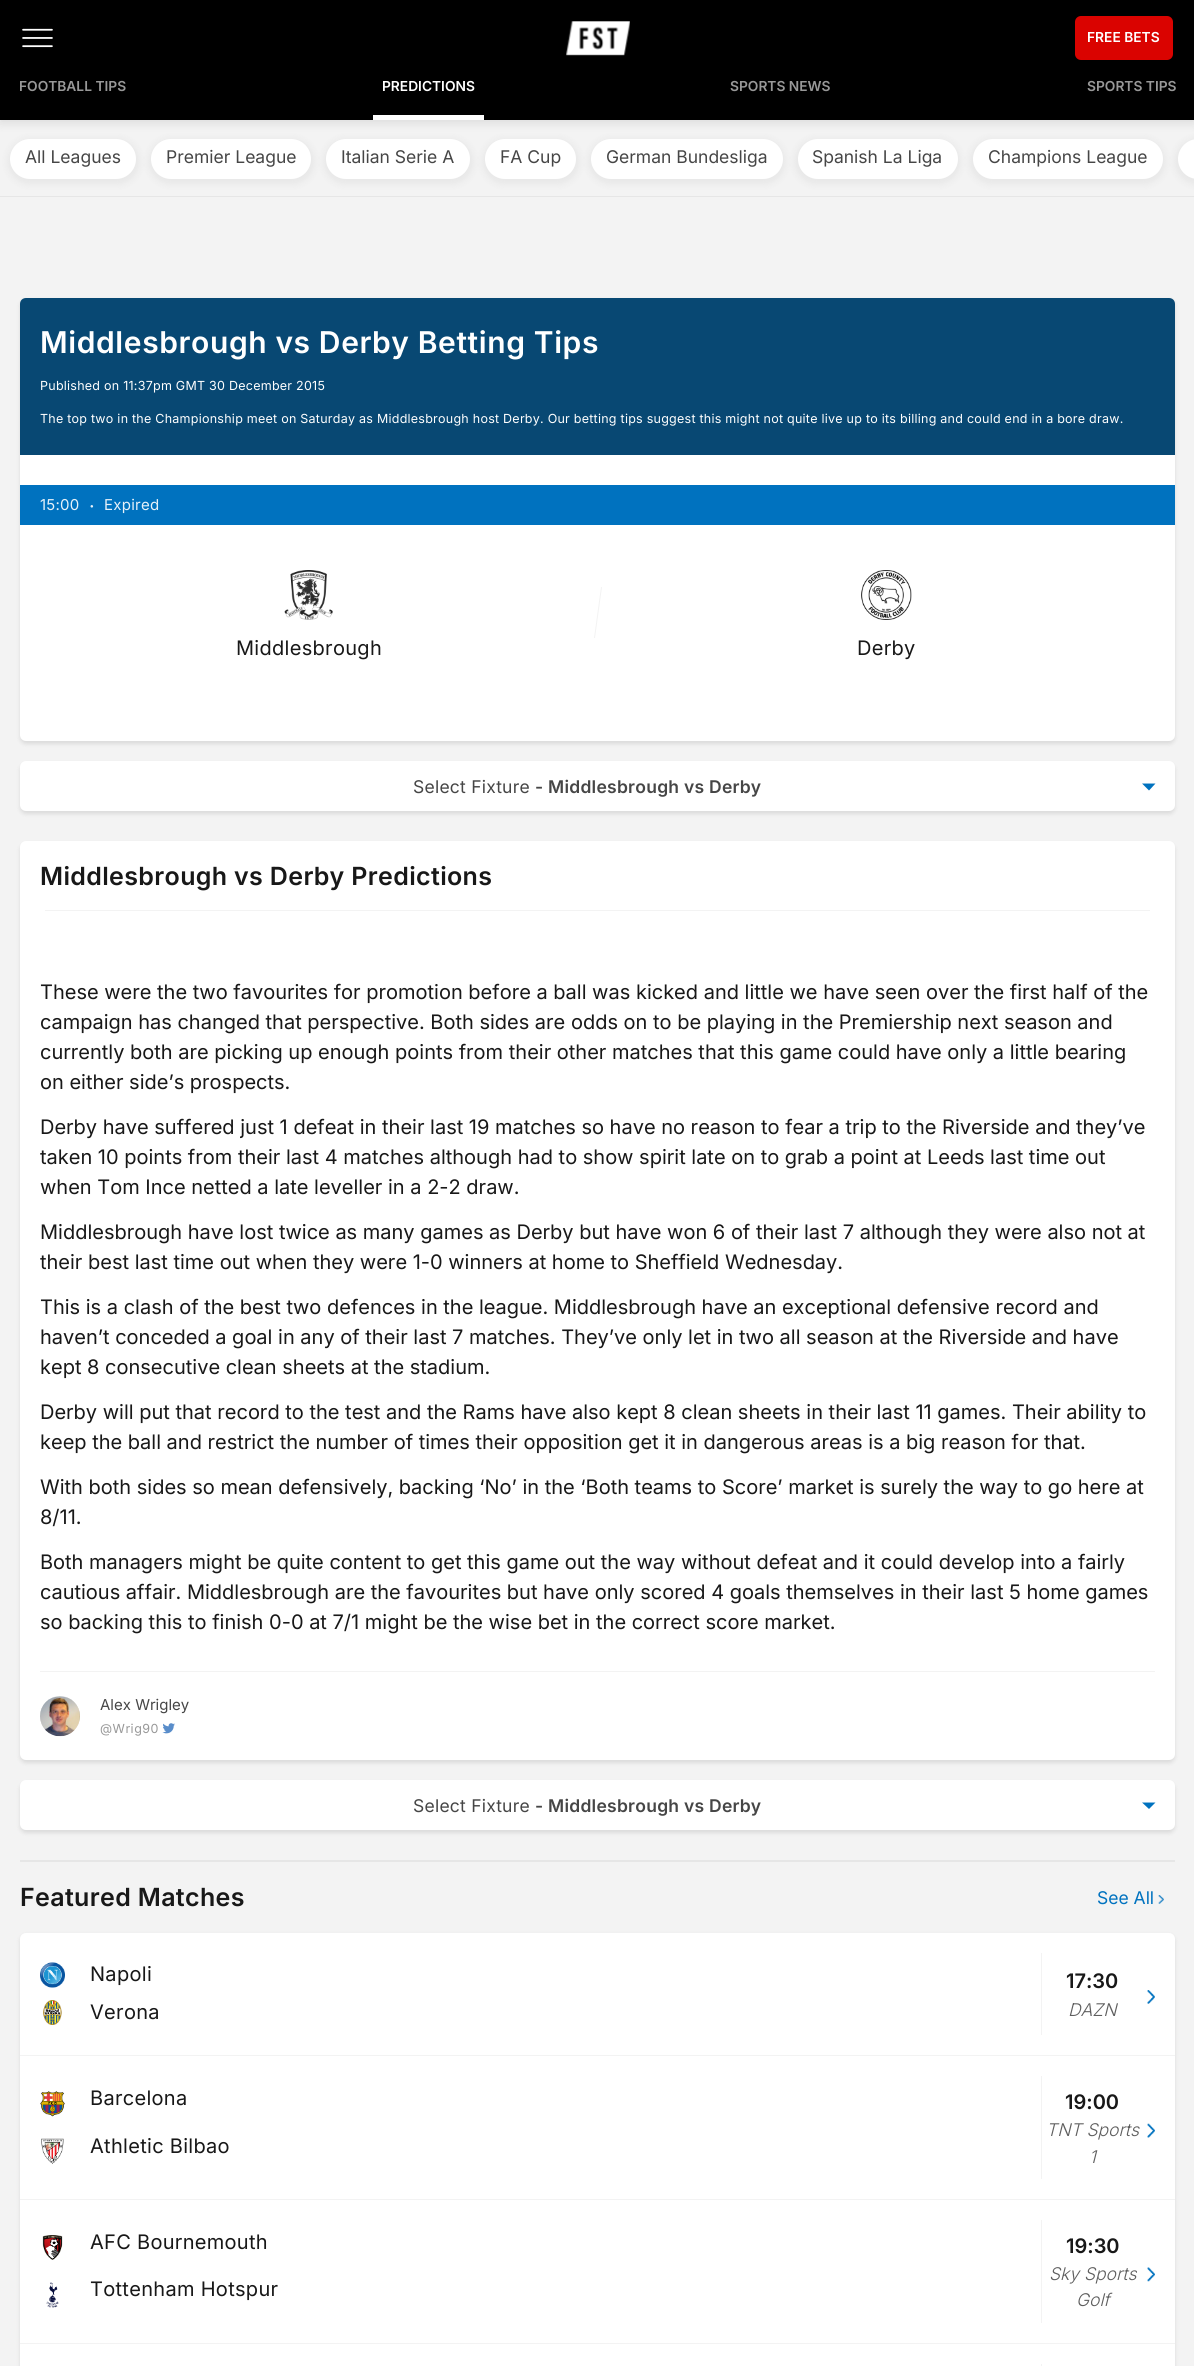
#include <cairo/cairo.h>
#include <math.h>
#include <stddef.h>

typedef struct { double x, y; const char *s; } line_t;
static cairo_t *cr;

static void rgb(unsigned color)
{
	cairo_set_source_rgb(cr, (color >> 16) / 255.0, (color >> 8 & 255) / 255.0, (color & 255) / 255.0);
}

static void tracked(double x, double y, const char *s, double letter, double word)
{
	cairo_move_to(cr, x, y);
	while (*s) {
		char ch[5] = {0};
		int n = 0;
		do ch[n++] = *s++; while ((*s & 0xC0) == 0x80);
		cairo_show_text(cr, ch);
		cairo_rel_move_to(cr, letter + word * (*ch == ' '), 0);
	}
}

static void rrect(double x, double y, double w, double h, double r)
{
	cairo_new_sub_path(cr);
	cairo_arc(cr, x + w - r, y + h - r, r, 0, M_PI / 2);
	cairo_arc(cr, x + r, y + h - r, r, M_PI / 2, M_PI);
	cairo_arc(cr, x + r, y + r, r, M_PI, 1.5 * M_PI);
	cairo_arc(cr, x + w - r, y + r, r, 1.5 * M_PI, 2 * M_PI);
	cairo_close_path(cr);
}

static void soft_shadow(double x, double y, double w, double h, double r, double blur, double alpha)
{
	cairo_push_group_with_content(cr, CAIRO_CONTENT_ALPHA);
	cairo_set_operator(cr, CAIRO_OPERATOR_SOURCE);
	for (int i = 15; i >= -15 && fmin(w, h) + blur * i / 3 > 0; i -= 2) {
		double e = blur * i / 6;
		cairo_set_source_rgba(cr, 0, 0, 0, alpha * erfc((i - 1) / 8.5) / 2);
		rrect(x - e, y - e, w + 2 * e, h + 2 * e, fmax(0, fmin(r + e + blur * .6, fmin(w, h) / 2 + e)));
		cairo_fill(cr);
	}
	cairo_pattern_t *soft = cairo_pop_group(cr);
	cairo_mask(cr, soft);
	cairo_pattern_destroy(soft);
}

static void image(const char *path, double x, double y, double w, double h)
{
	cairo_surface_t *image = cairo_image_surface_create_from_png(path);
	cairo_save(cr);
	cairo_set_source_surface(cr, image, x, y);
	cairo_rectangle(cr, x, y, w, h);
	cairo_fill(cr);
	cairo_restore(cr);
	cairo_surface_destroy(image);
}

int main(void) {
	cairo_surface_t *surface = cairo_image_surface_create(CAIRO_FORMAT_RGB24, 1194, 2366);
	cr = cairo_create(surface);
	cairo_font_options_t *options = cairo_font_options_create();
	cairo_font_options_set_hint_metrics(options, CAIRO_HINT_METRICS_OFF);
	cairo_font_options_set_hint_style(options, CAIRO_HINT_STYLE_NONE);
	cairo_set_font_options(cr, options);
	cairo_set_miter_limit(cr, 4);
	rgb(0xf3f3f3);
	cairo_paint(cr);
	rgb(0x000000);
	soft_shadow(0, 78, 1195, 45, 0, 5, 0.1);
	rgb(0x000000);
	cairo_rectangle(cr, 0, 0, 1194, 120);
	cairo_fill(cr);
	image("img/1.png", 22, 28, 31, 20);
	image("img/2.png", 566, 21, 64, 35);
	rgb(0xda0300);
	rrect(1075, 16, 98, 44, 6);
	cairo_fill(cr);
	rgb(0xffffff);
	cairo_rectangle(cr, 373, 115, 111, 5);
	cairo_fill(cr);
	rgb(0xe6e6e6);
	cairo_rectangle(cr, 0, 196, 1194, 1);
	cairo_fill(cr);
	rgb(0x000000);
	soft_shadow(8, 139, 131, 45, 22.5, 4, 0.05);
	rgb(0xffffff);
	rrect(10, 139, 126, 40, 20);
	cairo_fill(cr);
	rgb(0x000000);
	soft_shadow(149, 139, 165, 45, 22.5, 4, 0.05);
	rgb(0xffffff);
	rrect(151, 139, 160, 40, 20);
	cairo_fill(cr);
	rgb(0x000000);
	soft_shadow(324, 139, 149, 45, 22.5, 4, 0.05);
	rgb(0xffffff);
	rrect(326, 139, 144, 40, 20);
	cairo_fill(cr);
	rgb(0x000000);
	soft_shadow(483, 139, 96, 45, 22.5, 4, 0.05);
	rgb(0xffffff);
	rrect(485, 139, 91, 40, 20);
	cairo_fill(cr);
	rgb(0x000000);
	soft_shadow(589, 139, 196, 45, 22.5, 4, 0.05);
	rgb(0xffffff);
	rrect(591, 139, 192, 40, 20);
	cairo_fill(cr);
	rgb(0x000000);
	soft_shadow(795, 139, 165, 45, 22.5, 4, 0.05);
	rgb(0xffffff);
	rrect(798, 139, 160, 40, 20);
	cairo_fill(cr);
	rgb(0x000000);
	soft_shadow(970, 139, 195, 45, 22.5, 4, 0.05);
	rgb(0xffffff);
	rrect(973, 139, 190, 40, 20);
	cairo_fill(cr);
	rgb(0x000000);
	soft_shadow(1175, 139, 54, 45, 22.5, 4, 0.05);
	rgb(0xffffff);
	cairo_new_path(cr);
	cairo_move_to(cr, 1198, 139);
	cairo_line_to(cr, 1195, 139);
	cairo_line_to(cr, 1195, 179);
	cairo_line_to(cr, 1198, 179);
	cairo_curve_to(cr, 1187, 179, 1178, 170, 1178, 159);
	cairo_curve_to(cr, 1178, 148, 1187, 139, 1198, 139);
	cairo_close_path(cr);
	cairo_fill(cr);
	rgb(0x000000);
	soft_shadow(20, 300, 1155, 444, 6, 2, 0.1);
	rgb(0xffffff);
	rrect(20, 298, 1155, 443, 6);
	cairo_fill(cr);
	rgb(0x084873);
	cairo_new_path(cr);
	cairo_move_to(cr, 26, 298);
	cairo_line_to(cr, 1169, 298);
	cairo_curve_to(cr, 1172.5, 298, 1175, 300.5, 1175, 304);
	cairo_line_to(cr, 1175, 455);
	cairo_line_to(cr, 20, 455);
	cairo_line_to(cr, 20, 304);
	cairo_curve_to(cr, 20, 300.5, 22.5, 298, 26, 298);
	cairo_close_path(cr);
	cairo_fill(cr);
	rgb(0x0072bf);
	cairo_rectangle(cr, 20, 485, 1155, 40);
	cairo_fill(cr);
	rgb(0xf3f3f3);
	cairo_new_path(cr);
	cairo_move_to(cr, 601, 587);
	cairo_line_to(cr, 602, 587);
	cairo_line_to(cr, 595, 638);
	cairo_line_to(cr, 594, 638);
	cairo_close_path(cr);
	cairo_fill(cr);
	image("img/3.png", 284, 570, 49, 50);
	image("img/4.png", 861, 570, 51, 50);
	rgb(0x000000);
	soft_shadow(20, 764, 1155, 50, 6, 2, 0.1);
	rgb(0xffffff);
	rrect(20, 761, 1155, 50, 6);
	cairo_fill(cr);
	rgb(0x0072bf);
	cairo_new_path(cr);
	cairo_move_to(cr, 1142, 783.5);
	cairo_line_to(cr, 1149, 790.5);
	cairo_line_to(cr, 1155.5, 783.5);
	cairo_close_path(cr);
	cairo_fill(cr);
	rgb(0x000000);
	soft_shadow(20, 844, 1155, 919, 6, 2, 0.1);
	rgb(0xffffff);
	rrect(20, 841, 1155, 919, 6);
	cairo_fill(cr);
	rgb(0xf3f3f3);
	cairo_rectangle(cr, 45, 910, 1105, 1);
	cairo_fill(cr);
	cairo_rectangle(cr, 40, 1671, 1115, 1);
	cairo_fill(cr);
	rgb(0xe6e6e6);
	cairo_arc(cr, 60, 1716, 20, 0, 2 * M_PI);
	cairo_fill(cr);
	image("img/5.png", 40, 1696, 40, 41);
	image("img/6.png", 162, 1723, 13, 11);
	rgb(0x000000);
	soft_shadow(20, 1783, 1155, 50, 6, 2, 0.1);
	rgb(0xffffff);
	rrect(20, 1780, 1155, 50, 6);
	cairo_fill(cr);
	rgb(0x0072bf);
	cairo_new_path(cr);
	cairo_move_to(cr, 1142, 1802.5);
	cairo_line_to(cr, 1149, 1809);
	cairo_line_to(cr, 1155.5, 1802.5);
	cairo_close_path(cr);
	cairo_fill(cr);
	rgb(0xe6e6e6);
	cairo_rectangle(cr, 20, 1860, 1155, 2);
	cairo_fill(cr);
	image("img/7.png", 1158, 1895, 6, 9);
	rgb(0x000000);
	soft_shadow(20, 1935, 1155, 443, 6, 2, 0.1);
	rgb(0xffffff);
	rrect(20, 1933, 1155, 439, 6);
	cairo_fill(cr);
	rgb(0xf3f3f3);
	cairo_rectangle(cr, 20, 2055, 1155, 1);
	cairo_fill(cr);
	cairo_rectangle(cr, 1041, 1953, 1, 82);
	cairo_fill(cr);
	image("img/8.png", 40, 1962, 25, 26);
	image("img/9.png", 43, 2000, 19, 25);
	image("img/10.png", 1147, 1990, 8, 14);
	cairo_rectangle(cr, 20, 2199, 1155, 1);
	cairo_fill(cr);
	cairo_rectangle(cr, 1041, 2076, 1, 103);
	cairo_fill(cr);
	image("img/11.png", 40, 2091, 25, 26);
	image("img/12.png", 41, 2138, 23, 26);
	image("img/13.png", 1147, 2123, 8, 15);
	cairo_rectangle(cr, 20, 2343, 1155, 1);
	cairo_fill(cr);
	cairo_rectangle(cr, 1041, 2220, 1, 103);
	cairo_fill(cr);
	image("img/14.png", 42, 2235, 21, 25);
	image("img/15.png", 46, 2282, 13, 26);
	image("img/16.png", 1147, 2267, 8, 15);
	cairo_rectangle(cr, 1041, 2364, 1, 2);
	cairo_fill(cr);
	cairo_select_font_face(cr, "Inter SemiBold", CAIRO_FONT_SLANT_NORMAL, CAIRO_FONT_WEIGHT_NORMAL);
	cairo_set_font_size(cr, 13.75);
	rgb(0xffffff);
	cairo_move_to(cr, 1087, 42);
	cairo_show_text(cr, "FREE BETS");
	rgb(0x989898);
	cairo_move_to(cr, 19, 91);
	cairo_show_text(cr, "FOOTBALL TIPS");
	rgb(0xffffff);
	cairo_move_to(cr, 382, 91);
	cairo_show_text(cr, "PREDICTIONS");
	rgb(0x989898);
	cairo_move_to(cr, 730, 91);
	cairo_show_text(cr, "SPORTS NEWS");
	cairo_move_to(cr, 1087, 91);
	cairo_show_text(cr, "SPORTS TIPS");
	cairo_select_font_face(cr, "Inter", CAIRO_FONT_SLANT_NORMAL, CAIRO_FONT_WEIGHT_NORMAL);
	cairo_set_font_size(cr, 17.5);
	rgb(0x464646);
	{
		static const line_t items[] = {
			{25, 163, "All Leagues"},
			{166, 163, "Premier League"},
			{341, 163, "Italian Serie A"},
			{500, 163, "FA Cup"},
			{606, 163, "German Bundesliga"},
			{812, 163, "Spanish La Liga"},
			{988, 163, "Champions League"},
		};
		for (size_t i = 0; i < sizeof items / sizeof *items; i++) {
			cairo_move_to(cr, items[i].x, items[i].y);
			cairo_show_text(cr, items[i].s);
		}
	}
	cairo_select_font_face(cr, "Inter SemiBold", CAIRO_FONT_SLANT_NORMAL, CAIRO_FONT_WEIGHT_NORMAL);
	cairo_set_font_size(cr, 30);
	rgb(0xffffff);
	tracked(40, 353, "Middlesbrough vs Derby Betting Tips", 0.6, 0);
	cairo_select_font_face(cr, "Inter", CAIRO_FONT_SLANT_NORMAL, CAIRO_FONT_WEIGHT_NORMAL);
	cairo_set_font_size(cr, 12.5);
	tracked(40, 390, "Published on 11:37pm GMT 30 December 2015", 0.25, 0);
	tracked(40, 423, "The top two in the Championship meet on Saturday as Middlesbrough host Derby. Our betting tips suggest this might not quite live up to its billing and could end in a bore draw.", 0.25, 0);
	cairo_set_font_size(cr, 15);
	rgb(0xe6f1f9);
	tracked(40, 510, "15:00", 0.25, 0);
	cairo_select_font_face(cr, "Liberation Sans", CAIRO_FONT_SLANT_NORMAL, CAIRO_FONT_WEIGHT_NORMAL);
	cairo_set_font_size(cr, 6);
	tracked(90, 508, "●", 0.25, 0);
	cairo_select_font_face(cr, "Inter", CAIRO_FONT_SLANT_NORMAL, CAIRO_FONT_WEIGHT_NORMAL);
	cairo_set_font_size(cr, 15);
	tracked(104, 510, "Expired", 0.25, 0);
	cairo_set_font_size(cr, 20);
	rgb(0x181818);
	tracked(236, 655, "Middlesbrough", 0.3, 0);
	tracked(857, 655, "Derby", 0.3, 0);
	cairo_set_font_size(cr, 17.5);
	rgb(0x464646);
	tracked(413, 793, "Select Fixture", 0.25, 0);
	cairo_select_font_face(cr, "Inter SemiBold", CAIRO_FONT_SLANT_NORMAL, CAIRO_FONT_WEIGHT_NORMAL);
	tracked(535, 793, "- Middlesbrough vs Derby", 0.25, 0);
	cairo_set_font_size(cr, 25);
	rgb(0x181818);
	tracked(40, 885, "Middlesbrough vs Derby Predictions", 0.35, 0);
	cairo_select_font_face(cr, "Inter", CAIRO_FONT_SLANT_NORMAL, CAIRO_FONT_WEIGHT_NORMAL);
	cairo_set_font_size(cr, 20);
	{
		static const line_t items[] = {
			{40, 999, "These were the two favourites for promotion before a ball was kicked and little we have seen over the first half of the"},
			{40, 1029, "campaign has changed that perspective. Both sides are odds on to be playing in the Premiership next season and"},
			{40, 1059, "currently both are picking up enough points from their other matches that this game could have only a little bearing"},
			{40, 1089, "on either side’s prospects."},
			{40, 1134, "Derby have suffered just 1 defeat in their last 19 matches so have no reason to fear a trip to the Riverside and they’ve"},
			{40, 1164, "taken 10 points from their last 4 matches although had to show spirit late on to grab a point at Leeds last time out"},
			{40, 1194, "when Tom Ince netted a late leveller in a 2-2 draw."},
			{40, 1239, "Middlesbrough have lost twice as many games as Derby but have won 6 of their last 7 although they were also not at"},
			{40, 1269, "their best last time out when they were 1-0 winners at home to Sheffield Wednesday."},
			{40, 1314, "This is a clash of the best two defences in the league. Middlesbrough have an exceptional defensive record and"},
			{40, 1344, "haven’t conceded a goal in any of their last 7 matches. They’ve only let in two all season at the Riverside and have"},
			{40, 1374, "kept 8 consecutive clean sheets at the stadium."},
			{40, 1419, "Derby will put that record to the test and the Rams have also kept 8 clean sheets in their last 11 games. Their ability to"},
			{40, 1449, "keep the ball and restrict the number of times their opposition get it in dangerous areas is a big reason for that."},
			{40, 1494, "With both sides so mean defensively, backing ‘No’ in the ‘Both teams to Score’ market is surely the way to go here at"},
			{40, 1524, "8/11."},
			{40, 1569, "Both managers might be quite content to get this game out the way without defeat and it could develop into a fairly"},
			{40, 1599, "cautious affair. Middlesbrough are the favourites but have only scored 4 goals themselves in their last 5 home games"},
			{40, 1629, "so backing this to finish 0-0 at 7/1 might be the wise bet in the correct score market."},
		};
		for (size_t i = 0; i < sizeof items / sizeof *items; i++) {
			cairo_move_to(cr, items[i].x, items[i].y);
			cairo_show_text(cr, items[i].s);
		}
	}
	cairo_set_font_size(cr, 15);
	rgb(0x464646);
	cairo_move_to(cr, 100, 1710);
	cairo_show_text(cr, "Alex Wrigley");
	cairo_set_font_size(cr, 12.5);
	rgb(0x989898);
	tracked(100, 1733, "@Wrig90", 0.5, 0);
	cairo_set_font_size(cr, 17.5);
	rgb(0x464646);
	tracked(413, 1812, "Select Fixture", 0.25, 0);
	cairo_select_font_face(cr, "Inter SemiBold", CAIRO_FONT_SLANT_NORMAL, CAIRO_FONT_WEIGHT_NORMAL);
	tracked(535, 1812, "- Middlesbrough vs Derby", 0.25, 0);
	cairo_set_font_size(cr, 25);
	rgb(0x181818);
	tracked(20, 1906, "Featured Matches", 0.35, 0);
	cairo_select_font_face(cr, "Inter", CAIRO_FONT_SLANT_NORMAL, CAIRO_FONT_WEIGHT_NORMAL);
	cairo_set_font_size(cr, 17.5);
	rgb(0x0072bf);
	cairo_move_to(cr, 1097, 1904);
	cairo_show_text(cr, "See All");
	cairo_set_font_size(cr, 20);
	rgb(0x181818);
	tracked(90, 1981, "Napoli", 0.3, 0);
	tracked(90, 2019, "Verona", 0.3, 0);
	cairo_select_font_face(cr, "Inter SemiBold", CAIRO_FONT_SLANT_NORMAL, CAIRO_FONT_WEIGHT_NORMAL);
	cairo_move_to(cr, 1066, 1988);
	cairo_show_text(cr, "17:30");
	cairo_select_font_face(cr, "Inter Light", CAIRO_FONT_SLANT_ITALIC, CAIRO_FONT_WEIGHT_NORMAL);
	cairo_set_font_size(cr, 17.5);
	rgb(0x5e5e5e);
	cairo_move_to(cr, 1068, 2016);
	cairo_show_text(cr, "DAZN");
	cairo_select_font_face(cr, "Inter", CAIRO_FONT_SLANT_NORMAL, CAIRO_FONT_WEIGHT_NORMAL);
	cairo_set_font_size(cr, 20);
	rgb(0x181818);
	tracked(90, 2105, "Barcelona", 0.3, 0);
	tracked(90, 2153, "Athletic Bilbao", 0.3, 0);
	cairo_select_font_face(cr, "Inter SemiBold", CAIRO_FONT_SLANT_NORMAL, CAIRO_FONT_WEIGHT_NORMAL);
	cairo_move_to(cr, 1065, 2109);
	cairo_show_text(cr, "19:00");
	cairo_select_font_face(cr, "Inter Light", CAIRO_FONT_SLANT_ITALIC, CAIRO_FONT_WEIGHT_NORMAL);
	cairo_set_font_size(cr, 17.5);
	rgb(0x5e5e5e);
	cairo_move_to(cr, 1046, 2136);
	cairo_show_text(cr, "TNT Sports");
	cairo_move_to(cr, 1089, 2163);
	cairo_show_text(cr, "1");
	cairo_select_font_face(cr, "Inter", CAIRO_FONT_SLANT_NORMAL, CAIRO_FONT_WEIGHT_NORMAL);
	cairo_set_font_size(cr, 20);
	rgb(0x181818);
	tracked(90, 2249, "AFC Bournemouth", 0.3, 0);
	tracked(90, 2296, "Tottenham Hotspur", 0.3, 0);
	cairo_select_font_face(cr, "Inter SemiBold", CAIRO_FONT_SLANT_NORMAL, CAIRO_FONT_WEIGHT_NORMAL);
	cairo_move_to(cr, 1066, 2253);
	cairo_show_text(cr, "19:30");
	cairo_select_font_face(cr, "Inter Light", CAIRO_FONT_SLANT_ITALIC, CAIRO_FONT_WEIGHT_NORMAL);
	cairo_set_font_size(cr, 17.5);
	rgb(0x5e5e5e);
	cairo_move_to(cr, 1049, 2280);
	cairo_show_text(cr, "Sky Sports");
	cairo_move_to(cr, 1076, 2306);
	cairo_show_text(cr, "Golf");
	cairo_surface_write_to_png(surface, "page.png");
	cairo_font_options_destroy(options);
	cairo_destroy(cr);
	cairo_surface_destroy(surface);
	return 0;
}
